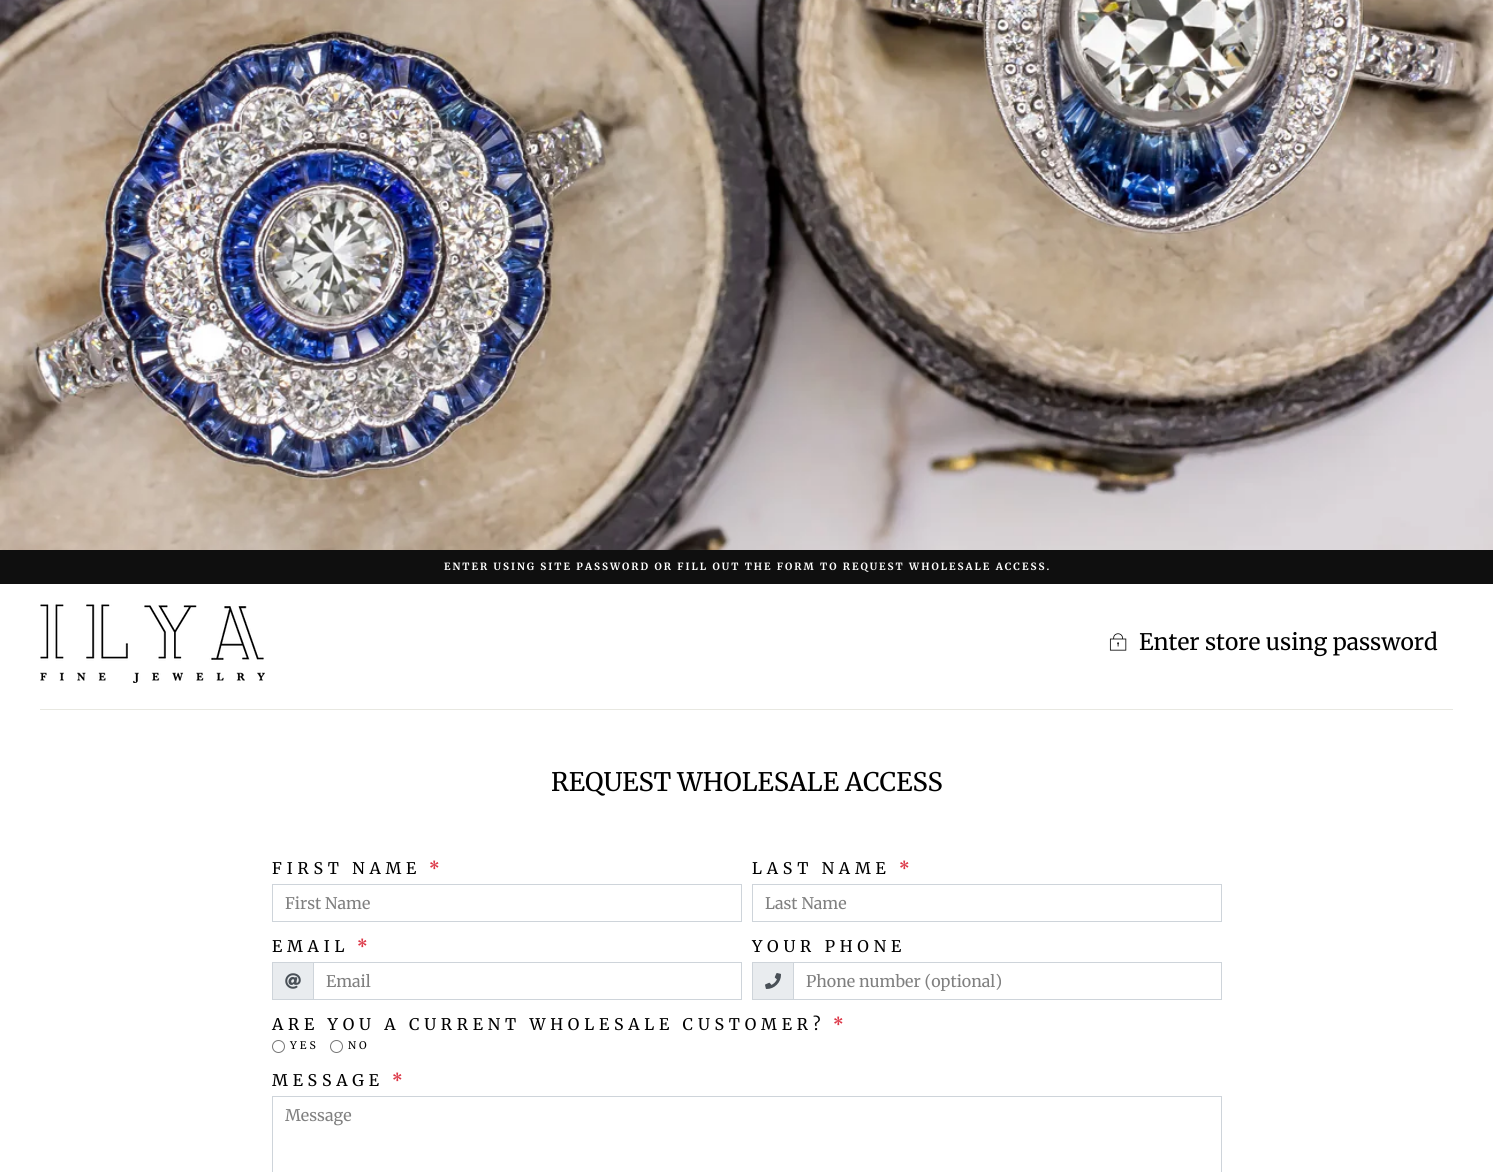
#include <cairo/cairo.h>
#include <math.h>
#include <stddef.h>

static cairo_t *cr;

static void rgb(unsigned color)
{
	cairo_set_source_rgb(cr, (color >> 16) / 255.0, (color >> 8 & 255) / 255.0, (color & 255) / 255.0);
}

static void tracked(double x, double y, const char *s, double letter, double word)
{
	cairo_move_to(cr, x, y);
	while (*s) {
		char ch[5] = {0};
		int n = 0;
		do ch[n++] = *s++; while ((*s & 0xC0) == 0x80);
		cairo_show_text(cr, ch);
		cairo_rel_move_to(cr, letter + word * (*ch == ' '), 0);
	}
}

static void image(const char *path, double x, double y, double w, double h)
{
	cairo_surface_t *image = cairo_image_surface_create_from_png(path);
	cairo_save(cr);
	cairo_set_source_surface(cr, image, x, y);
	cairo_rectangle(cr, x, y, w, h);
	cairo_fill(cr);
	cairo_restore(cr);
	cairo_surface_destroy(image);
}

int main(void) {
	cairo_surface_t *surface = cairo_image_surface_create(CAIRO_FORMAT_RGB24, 1493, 1172);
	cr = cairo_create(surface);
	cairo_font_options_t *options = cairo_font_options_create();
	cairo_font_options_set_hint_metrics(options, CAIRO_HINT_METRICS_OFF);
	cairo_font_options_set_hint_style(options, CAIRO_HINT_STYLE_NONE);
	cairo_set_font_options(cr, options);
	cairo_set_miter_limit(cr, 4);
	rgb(0xffffff);
	cairo_paint(cr);
	image("img/1.png", 0, 0, 1493, 550);
	rgb(0x0f0f0f);
	cairo_rectangle(cr, 0, 550, 1493, 34);
	cairo_fill(cr);
	image("img/2.png", 40, 604, 225, 79);
	image("img/3.png", 1109, 633, 18, 18);
	rgb(0xe8e8e1);
	cairo_rectangle(cr, 40, 709, 1413, 1);
	cairo_fill(cr);
	cairo_rectangle(cr, 272.5, 884.5, 469, 37);
	rgb(0xced4da);
	cairo_set_line_width(cr, 1);
	cairo_stroke(cr);
	cairo_rectangle(cr, 752.5, 884.5, 469, 37);
	cairo_stroke(cr);
	rgb(0xe9ecef);
	cairo_rectangle(cr, 272.5, 962.5, 41, 37);
	cairo_fill_preserve(cr);
	rgb(0xced4da);
	cairo_stroke(cr);
	image("img/4.png", 285, 973, 16, 16);
	cairo_rectangle(cr, 313.5, 962.5, 428, 37);
	cairo_stroke(cr);
	rgb(0xe9ecef);
	cairo_rectangle(cr, 752.5, 962.5, 41, 37);
	cairo_fill_preserve(cr);
	rgb(0xced4da);
	cairo_stroke(cr);
	image("img/5.png", 765, 973, 16, 16);
	cairo_rectangle(cr, 793.5, 962.5, 428, 37);
	cairo_stroke(cr);
	cairo_arc(cr, 278.5, 1046.5, 6, 0, 2 * M_PI);
	rgb(0x767676);
	cairo_stroke(cr);
	cairo_arc(cr, 336.5, 1046.5, 6, 0, 2 * M_PI);
	cairo_stroke(cr);
	cairo_rectangle(cr, 272.5, 1096.5, 949, 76);
	rgb(0xced4da);
	cairo_stroke(cr);
	cairo_select_font_face(cr, "Merriweather", CAIRO_FONT_SLANT_NORMAL, CAIRO_FONT_WEIGHT_BOLD);
	cairo_set_font_size(cr, 9.95);
	rgb(0xffffff);
	tracked(444, 570, "ENTER USING SITE PASSWORD OR FILL OUT THE FORM TO REQUEST WHOLESALE ACCESS.", 2, 0);
	cairo_select_font_face(cr, "Merriweather", CAIRO_FONT_SLANT_NORMAL, CAIRO_FONT_WEIGHT_NORMAL);
	cairo_set_font_size(cr, 22.75);
	rgb(0x000000);
	cairo_move_to(cr, 1139, 650);
	cairo_show_text(cr, "Enter store using password");
	cairo_set_font_size(cr, 25.5);
	cairo_move_to(cr, 551, 791);
	cairo_show_text(cr, "REQUEST WHOLESALE ACCESS");
	cairo_set_font_size(cr, 16);
	tracked(272, 874, "FIRST NAME", 4.8, 0);
	cairo_select_font_face(cr, "Merriweather", CAIRO_FONT_SLANT_NORMAL, CAIRO_FONT_WEIGHT_BOLD);
	rgb(0xdc3545);
	tracked(429, 874, "*", 4.8, 0);
	cairo_select_font_face(cr, "Merriweather", CAIRO_FONT_SLANT_NORMAL, CAIRO_FONT_WEIGHT_NORMAL);
	rgb(0x808080);
	cairo_move_to(cr, 285, 909);
	cairo_show_text(cr, "First Name");
	rgb(0x000000);
	tracked(752, 874, "LAST NAME", 4.8, 0);
	cairo_select_font_face(cr, "Merriweather", CAIRO_FONT_SLANT_NORMAL, CAIRO_FONT_WEIGHT_BOLD);
	rgb(0xdc3545);
	tracked(899, 874, "*", 4.8, 0);
	cairo_select_font_face(cr, "Merriweather", CAIRO_FONT_SLANT_NORMAL, CAIRO_FONT_WEIGHT_NORMAL);
	rgb(0x808080);
	cairo_move_to(cr, 765, 909);
	cairo_show_text(cr, "Last Name");
	rgb(0x000000);
	tracked(272, 952, "EMAIL", 4.8, 0);
	cairo_select_font_face(cr, "Merriweather", CAIRO_FONT_SLANT_NORMAL, CAIRO_FONT_WEIGHT_BOLD);
	rgb(0xdc3545);
	tracked(357, 952, "*", 4.8, 0);
	cairo_select_font_face(cr, "Merriweather", CAIRO_FONT_SLANT_NORMAL, CAIRO_FONT_WEIGHT_NORMAL);
	rgb(0x808080);
	cairo_move_to(cr, 326, 987);
	cairo_show_text(cr, "Email");
	rgb(0x000000);
	tracked(752, 952, "YOUR PHONE", 4.8, 0);
	rgb(0x808080);
	cairo_move_to(cr, 806, 987);
	cairo_show_text(cr, "Phone number (optional)");
	rgb(0x000000);
	tracked(272, 1030, "ARE YOU A CURRENT WHOLESALE CUSTOMER?", 4.8, 0);
	cairo_select_font_face(cr, "Merriweather", CAIRO_FONT_SLANT_NORMAL, CAIRO_FONT_WEIGHT_BOLD);
	rgb(0xdc3545);
	tracked(833, 1030, "*", 4.8, 0);
	cairo_select_font_face(cr, "Merriweather", CAIRO_FONT_SLANT_NORMAL, CAIRO_FONT_WEIGHT_NORMAL);
	cairo_set_font_size(cr, 10.5);
	rgb(0x000000);
	tracked(290, 1049, "YES", 3, 0);
	tracked(348, 1049, "NO", 3, 0);
	cairo_set_font_size(cr, 16);
	tracked(272, 1086, "MESSAGE", 4.8, 0);
	cairo_select_font_face(cr, "Merriweather", CAIRO_FONT_SLANT_NORMAL, CAIRO_FONT_WEIGHT_BOLD);
	rgb(0xdc3545);
	tracked(392, 1086, "*", 4.8, 0);
	cairo_select_font_face(cr, "Merriweather", CAIRO_FONT_SLANT_NORMAL, CAIRO_FONT_WEIGHT_NORMAL);
	rgb(0x808080);
	cairo_move_to(cr, 285, 1121);
	cairo_show_text(cr, "Message");
	cairo_surface_write_to_png(surface, "page.png");
	cairo_font_options_destroy(options);
	cairo_destroy(cr);
	cairo_surface_destroy(surface);
	return 0;
}
